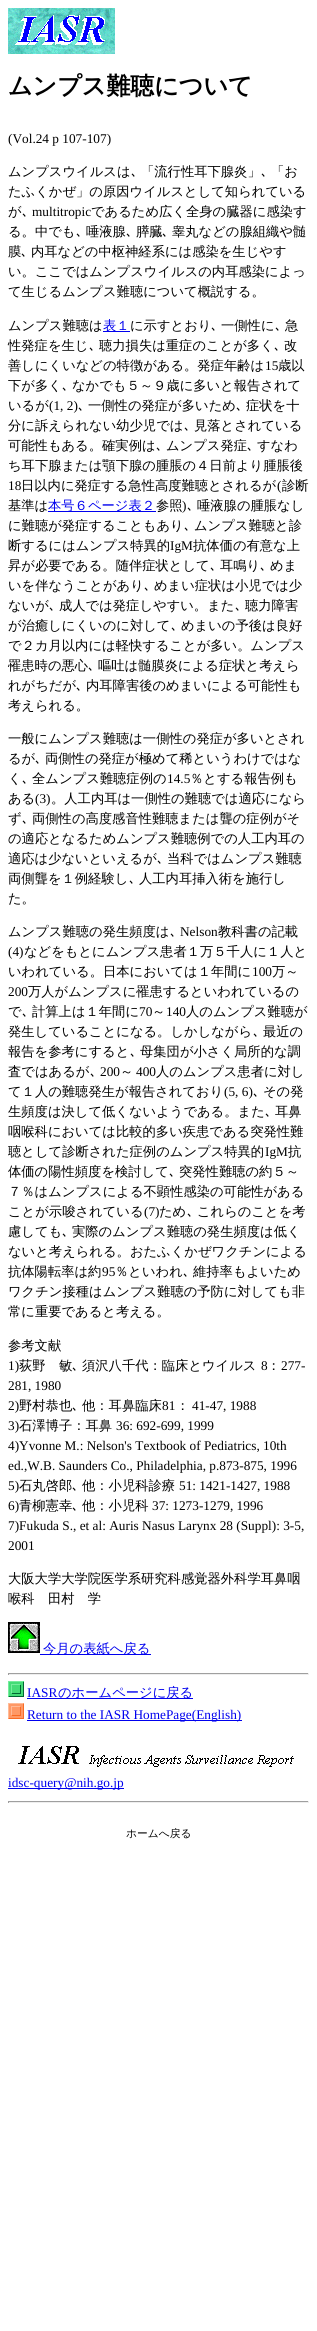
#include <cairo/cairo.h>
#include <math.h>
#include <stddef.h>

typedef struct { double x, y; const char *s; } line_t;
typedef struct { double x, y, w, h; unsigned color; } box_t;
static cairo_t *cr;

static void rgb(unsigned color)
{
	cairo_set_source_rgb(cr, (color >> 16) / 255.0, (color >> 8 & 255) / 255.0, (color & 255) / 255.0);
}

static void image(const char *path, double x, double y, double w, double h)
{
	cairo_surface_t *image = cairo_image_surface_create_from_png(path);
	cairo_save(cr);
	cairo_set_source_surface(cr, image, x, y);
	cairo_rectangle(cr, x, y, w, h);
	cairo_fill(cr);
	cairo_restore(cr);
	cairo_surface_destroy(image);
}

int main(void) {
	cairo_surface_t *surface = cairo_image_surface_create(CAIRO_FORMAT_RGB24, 317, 2331);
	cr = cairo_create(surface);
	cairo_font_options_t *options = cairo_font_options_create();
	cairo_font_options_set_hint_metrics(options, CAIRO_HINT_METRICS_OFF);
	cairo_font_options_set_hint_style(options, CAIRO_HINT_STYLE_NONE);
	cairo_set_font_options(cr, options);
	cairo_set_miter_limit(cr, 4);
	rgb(0xffffff);
	cairo_paint(cr);
	image("img/1.png", 8, 8, 107, 46);
	rgb(0x0000ee);
	cairo_rectangle(cr, 103, 331, 27, 1);
	cairo_fill(cr);
	cairo_rectangle(cr, 48, 511, 108, 1);
	cairo_fill(cr);
	image("img/2.png", 8, 1622, 32, 31);
	{
		static const box_t items[] = {
			{40, 1654, 111, 1, 0x0000ee},
			{8, 1673, 301, 1, 0x9f9f9f},
			{308, 1673, 1, 2, 0xeeeeee},
			{8, 1674, 301, 1, 0xeeeeee},
			{8, 1673, 1, 2, 0x9f9f9f},
		};
		for (size_t i = 0; i < sizeof items / sizeof *items; i++) {
			rgb(items[i].color);
			cairo_rectangle(cr, items[i].x, items[i].y, items[i].w, items[i].h);
			cairo_fill(cr);
		}
	}
	image("img/3.png", 8, 1681, 16, 16);
	rgb(0x0000ee);
	cairo_rectangle(cr, 27, 1698, 166, 1);
	cairo_fill(cr);
	image("img/4.png", 8, 1703, 16, 16);
	cairo_rectangle(cr, 27, 1720, 215, 1);
	cairo_fill(cr);
	image("img/5.png", 18, 1746, 276, 21);
	{
		static const box_t items[] = {
			{8, 1788, 116, 1, 0x0000ee},
			{8, 1801, 301, 1, 0x9f9f9f},
			{308, 1801, 1, 2, 0xeeeeee},
			{8, 1802, 301, 1, 0xeeeeee},
			{8, 1801, 1, 2, 0x9f9f9f},
		};
		for (size_t i = 0; i < sizeof items / sizeof *items; i++) {
			rgb(items[i].color);
			cairo_rectangle(cr, items[i].x, items[i].y, items[i].w, items[i].h);
			cairo_fill(cr);
		}
	}
	cairo_select_font_face(cr, "WenQuanYi Zen Hei", CAIRO_FONT_SLANT_NORMAL, CAIRO_FONT_WEIGHT_BOLD);
	cairo_set_font_size(cr, 24);
	rgb(0x000000);
	cairo_move_to(cr, 8, 94);
	cairo_show_text(cr, "ムンプス難聴について");
	cairo_select_font_face(cr, "Liberation Serif", CAIRO_FONT_SLANT_NORMAL, CAIRO_FONT_WEIGHT_NORMAL);
	cairo_set_font_size(cr, 13.3);
	cairo_move_to(cr, 8, 143);
	cairo_show_text(cr, "(Vol.24 p 107-107)");
	cairo_select_font_face(cr, "WenQuanYi Zen Hei Medium", CAIRO_FONT_SLANT_NORMAL, CAIRO_FONT_WEIGHT_NORMAL);
	cairo_move_to(cr, 8, 176);
	cairo_show_text(cr, "ムンプスウイルスは");
	cairo_select_font_face(cr, "IPAPGothic", CAIRO_FONT_SLANT_NORMAL, CAIRO_FONT_WEIGHT_NORMAL);
	cairo_move_to(cr, 131, 176);
	cairo_show_text(cr, "､");
	cairo_select_font_face(cr, "WenQuanYi Zen Hei Medium", CAIRO_FONT_SLANT_NORMAL, CAIRO_FONT_WEIGHT_NORMAL);
	cairo_move_to(cr, 141, 176);
	cairo_show_text(cr, "「流行性耳下腺炎」");
	cairo_select_font_face(cr, "IPAPGothic", CAIRO_FONT_SLANT_NORMAL, CAIRO_FONT_WEIGHT_NORMAL);
	cairo_move_to(cr, 261, 176);
	cairo_show_text(cr, "､");
	cairo_select_font_face(cr, "WenQuanYi Zen Hei Medium", CAIRO_FONT_SLANT_NORMAL, CAIRO_FONT_WEIGHT_NORMAL);
	{
		static const line_t items[] = {
			{271, 176, "「お"},
			{8, 196, "たふくかぜ」の原因ウイルスとして知られている"},
			{8, 216, "が"},
		};
		for (size_t i = 0; i < sizeof items / sizeof *items; i++) {
			cairo_move_to(cr, items[i].x, items[i].y);
			cairo_show_text(cr, items[i].s);
		}
	}
	cairo_select_font_face(cr, "IPAPGothic", CAIRO_FONT_SLANT_NORMAL, CAIRO_FONT_WEIGHT_NORMAL);
	cairo_move_to(cr, 22, 216);
	cairo_show_text(cr, "､");
	cairo_select_font_face(cr, "Liberation Serif", CAIRO_FONT_SLANT_NORMAL, CAIRO_FONT_WEIGHT_NORMAL);
	cairo_move_to(cr, 32, 216);
	cairo_show_text(cr, "multitropic");
	cairo_select_font_face(cr, "WenQuanYi Zen Hei Medium", CAIRO_FONT_SLANT_NORMAL, CAIRO_FONT_WEIGHT_NORMAL);
	cairo_move_to(cr, 91, 216);
	cairo_show_text(cr, "であるため広く全身の臓器に感染す");
	cairo_move_to(cr, 8, 236);
	cairo_show_text(cr, "る。中でも");
	cairo_select_font_face(cr, "IPAPGothic", CAIRO_FONT_SLANT_NORMAL, CAIRO_FONT_WEIGHT_NORMAL);
	cairo_move_to(cr, 76, 236);
	cairo_show_text(cr, "､");
	cairo_select_font_face(cr, "WenQuanYi Zen Hei Medium", CAIRO_FONT_SLANT_NORMAL, CAIRO_FONT_WEIGHT_NORMAL);
	cairo_move_to(cr, 86, 236);
	cairo_show_text(cr, "唾液腺");
	cairo_select_font_face(cr, "IPAPGothic", CAIRO_FONT_SLANT_NORMAL, CAIRO_FONT_WEIGHT_NORMAL);
	cairo_move_to(cr, 126, 236);
	cairo_show_text(cr, "､");
	cairo_select_font_face(cr, "WenQuanYi Zen Hei Medium", CAIRO_FONT_SLANT_NORMAL, CAIRO_FONT_WEIGHT_NORMAL);
	cairo_move_to(cr, 136, 236);
	cairo_show_text(cr, "膵臓");
	cairo_select_font_face(cr, "IPAPGothic", CAIRO_FONT_SLANT_NORMAL, CAIRO_FONT_WEIGHT_NORMAL);
	cairo_move_to(cr, 162, 236);
	cairo_show_text(cr, "､");
	cairo_select_font_face(cr, "WenQuanYi Zen Hei Medium", CAIRO_FONT_SLANT_NORMAL, CAIRO_FONT_WEIGHT_NORMAL);
	cairo_move_to(cr, 172, 236);
	cairo_show_text(cr, "睾丸などの腺組織や髄");
	cairo_move_to(cr, 8, 256);
	cairo_show_text(cr, "膜");
	cairo_select_font_face(cr, "IPAPGothic", CAIRO_FONT_SLANT_NORMAL, CAIRO_FONT_WEIGHT_NORMAL);
	cairo_move_to(cr, 21, 256);
	cairo_show_text(cr, "､");
	cairo_select_font_face(cr, "WenQuanYi Zen Hei Medium", CAIRO_FONT_SLANT_NORMAL, CAIRO_FONT_WEIGHT_NORMAL);
	{
		static const line_t items[] = {
			{31, 256, "内耳などの中枢神経系には感染を生じやす"},
			{8, 276, "い。ここではムンプスウイルスの内耳感染によっ"},
			{8, 296, "て生じるムンプス難聴について概説する。"},
			{8, 330, "ムンプス難聴は"},
		};
		for (size_t i = 0; i < sizeof items / sizeof *items; i++) {
			cairo_move_to(cr, items[i].x, items[i].y);
			cairo_show_text(cr, items[i].s);
		}
	}
	rgb(0x0000ee);
	cairo_move_to(cr, 103, 330);
	cairo_show_text(cr, "表１");
	rgb(0x000000);
	cairo_move_to(cr, 130, 330);
	cairo_show_text(cr, "に示すとおり");
	cairo_select_font_face(cr, "IPAPGothic", CAIRO_FONT_SLANT_NORMAL, CAIRO_FONT_WEIGHT_NORMAL);
	cairo_move_to(cr, 211, 330);
	cairo_show_text(cr, "､");
	cairo_select_font_face(cr, "WenQuanYi Zen Hei Medium", CAIRO_FONT_SLANT_NORMAL, CAIRO_FONT_WEIGHT_NORMAL);
	cairo_move_to(cr, 221, 330);
	cairo_show_text(cr, "一側性に");
	cairo_select_font_face(cr, "IPAPGothic", CAIRO_FONT_SLANT_NORMAL, CAIRO_FONT_WEIGHT_NORMAL);
	cairo_move_to(cr, 275, 330);
	cairo_show_text(cr, "､");
	cairo_select_font_face(cr, "WenQuanYi Zen Hei Medium", CAIRO_FONT_SLANT_NORMAL, CAIRO_FONT_WEIGHT_NORMAL);
	cairo_move_to(cr, 285, 330);
	cairo_show_text(cr, "急");
	cairo_move_to(cr, 8, 350);
	cairo_show_text(cr, "性発症を生じ");
	cairo_select_font_face(cr, "IPAPGothic", CAIRO_FONT_SLANT_NORMAL, CAIRO_FONT_WEIGHT_NORMAL);
	cairo_move_to(cr, 89, 350);
	cairo_show_text(cr, "､");
	cairo_select_font_face(cr, "WenQuanYi Zen Hei Medium", CAIRO_FONT_SLANT_NORMAL, CAIRO_FONT_WEIGHT_NORMAL);
	cairo_move_to(cr, 99, 350);
	cairo_show_text(cr, "聴力損失は重症のことが多く");
	cairo_select_font_face(cr, "IPAPGothic", CAIRO_FONT_SLANT_NORMAL, CAIRO_FONT_WEIGHT_NORMAL);
	cairo_move_to(cr, 274, 350);
	cairo_show_text(cr, "､");
	cairo_select_font_face(cr, "WenQuanYi Zen Hei Medium", CAIRO_FONT_SLANT_NORMAL, CAIRO_FONT_WEIGHT_NORMAL);
	cairo_move_to(cr, 284, 350);
	cairo_show_text(cr, "改");
	cairo_move_to(cr, 8, 370);
	cairo_show_text(cr, "善しにくいなどの特徴がある。発症年齢は");
	cairo_select_font_face(cr, "Liberation Serif", CAIRO_FONT_SLANT_NORMAL, CAIRO_FONT_WEIGHT_NORMAL);
	cairo_move_to(cr, 265, 370);
	cairo_show_text(cr, "15");
	cairo_select_font_face(cr, "WenQuanYi Zen Hei Medium", CAIRO_FONT_SLANT_NORMAL, CAIRO_FONT_WEIGHT_NORMAL);
	cairo_move_to(cr, 278, 370);
	cairo_show_text(cr, "歳以");
	cairo_move_to(cr, 8, 390);
	cairo_show_text(cr, "下が多く");
	cairo_select_font_face(cr, "IPAPGothic", CAIRO_FONT_SLANT_NORMAL, CAIRO_FONT_WEIGHT_NORMAL);
	cairo_move_to(cr, 62, 390);
	cairo_show_text(cr, "､");
	cairo_select_font_face(cr, "WenQuanYi Zen Hei Medium", CAIRO_FONT_SLANT_NORMAL, CAIRO_FONT_WEIGHT_NORMAL);
	cairo_move_to(cr, 72, 390);
	cairo_show_text(cr, "なかでも５～９歳に多いと報告されて");
	cairo_move_to(cr, 8, 410);
	cairo_show_text(cr, "いるが");
	cairo_select_font_face(cr, "Liberation Serif", CAIRO_FONT_SLANT_NORMAL, CAIRO_FONT_WEIGHT_NORMAL);
	cairo_move_to(cr, 49, 410);
	cairo_show_text(cr, "(1, 2)");
	cairo_select_font_face(cr, "IPAPGothic", CAIRO_FONT_SLANT_NORMAL, CAIRO_FONT_WEIGHT_NORMAL);
	cairo_move_to(cr, 78, 410);
	cairo_show_text(cr, "､");
	cairo_select_font_face(cr, "WenQuanYi Zen Hei Medium", CAIRO_FONT_SLANT_NORMAL, CAIRO_FONT_WEIGHT_NORMAL);
	cairo_move_to(cr, 88, 410);
	cairo_show_text(cr, "一側性の発症が多いため");
	cairo_select_font_face(cr, "IPAPGothic", CAIRO_FONT_SLANT_NORMAL, CAIRO_FONT_WEIGHT_NORMAL);
	cairo_move_to(cr, 236, 410);
	cairo_show_text(cr, "､");
	cairo_select_font_face(cr, "WenQuanYi Zen Hei Medium", CAIRO_FONT_SLANT_NORMAL, CAIRO_FONT_WEIGHT_NORMAL);
	cairo_move_to(cr, 246, 410);
	cairo_show_text(cr, "症状を十");
	cairo_move_to(cr, 8, 430);
	cairo_show_text(cr, "分に訴えられない幼少児では");
	cairo_select_font_face(cr, "IPAPGothic", CAIRO_FONT_SLANT_NORMAL, CAIRO_FONT_WEIGHT_NORMAL);
	cairo_move_to(cr, 184, 430);
	cairo_show_text(cr, "､");
	cairo_select_font_face(cr, "WenQuanYi Zen Hei Medium", CAIRO_FONT_SLANT_NORMAL, CAIRO_FONT_WEIGHT_NORMAL);
	cairo_move_to(cr, 194, 430);
	cairo_show_text(cr, "見落とされている");
	cairo_move_to(cr, 8, 450);
	cairo_show_text(cr, "可能性もある。確実例は");
	cairo_select_font_face(cr, "IPAPGothic", CAIRO_FONT_SLANT_NORMAL, CAIRO_FONT_WEIGHT_NORMAL);
	cairo_move_to(cr, 156, 450);
	cairo_show_text(cr, "､");
	cairo_select_font_face(cr, "WenQuanYi Zen Hei Medium", CAIRO_FONT_SLANT_NORMAL, CAIRO_FONT_WEIGHT_NORMAL);
	cairo_move_to(cr, 166, 450);
	cairo_show_text(cr, "ムンプス発症");
	cairo_select_font_face(cr, "IPAPGothic", CAIRO_FONT_SLANT_NORMAL, CAIRO_FONT_WEIGHT_NORMAL);
	cairo_move_to(cr, 247, 450);
	cairo_show_text(cr, "､");
	cairo_select_font_face(cr, "WenQuanYi Zen Hei Medium", CAIRO_FONT_SLANT_NORMAL, CAIRO_FONT_WEIGHT_NORMAL);
	cairo_move_to(cr, 257, 450);
	cairo_show_text(cr, "すなわ");
	cairo_move_to(cr, 8, 470);
	cairo_show_text(cr, "ち耳下腺または顎下腺の腫脹の４日前より腫脹後");
	cairo_select_font_face(cr, "Liberation Serif", CAIRO_FONT_SLANT_NORMAL, CAIRO_FONT_WEIGHT_NORMAL);
	cairo_move_to(cr, 8, 490);
	cairo_show_text(cr, "18");
	cairo_select_font_face(cr, "WenQuanYi Zen Hei Medium", CAIRO_FONT_SLANT_NORMAL, CAIRO_FONT_WEIGHT_NORMAL);
	cairo_move_to(cr, 21, 490);
	cairo_show_text(cr, "日以内に発症する急性高度難聴とされるが");
	cairo_select_font_face(cr, "Liberation Serif", CAIRO_FONT_SLANT_NORMAL, CAIRO_FONT_WEIGHT_NORMAL);
	cairo_move_to(cr, 277, 490);
	cairo_show_text(cr, "(");
	cairo_select_font_face(cr, "WenQuanYi Zen Hei Medium", CAIRO_FONT_SLANT_NORMAL, CAIRO_FONT_WEIGHT_NORMAL);
	cairo_move_to(cr, 282, 490);
	cairo_show_text(cr, "診断");
	cairo_move_to(cr, 8, 510);
	cairo_show_text(cr, "基準は");
	rgb(0x0000ee);
	cairo_move_to(cr, 48, 510);
	cairo_show_text(cr, "本号６ページ表２");
	rgb(0x000000);
	cairo_move_to(cr, 156, 510);
	cairo_show_text(cr, "参照");
	cairo_select_font_face(cr, "Liberation Serif", CAIRO_FONT_SLANT_NORMAL, CAIRO_FONT_WEIGHT_NORMAL);
	cairo_move_to(cr, 182, 510);
	cairo_show_text(cr, ")");
	cairo_select_font_face(cr, "IPAPGothic", CAIRO_FONT_SLANT_NORMAL, CAIRO_FONT_WEIGHT_NORMAL);
	cairo_move_to(cr, 187, 510);
	cairo_show_text(cr, "､");
	cairo_select_font_face(cr, "WenQuanYi Zen Hei Medium", CAIRO_FONT_SLANT_NORMAL, CAIRO_FONT_WEIGHT_NORMAL);
	cairo_move_to(cr, 197, 510);
	cairo_show_text(cr, "唾液腺の腫脹なし");
	cairo_move_to(cr, 8, 530);
	cairo_show_text(cr, "に難聴が発症することもあり");
	cairo_select_font_face(cr, "IPAPGothic", CAIRO_FONT_SLANT_NORMAL, CAIRO_FONT_WEIGHT_NORMAL);
	cairo_move_to(cr, 184, 530);
	cairo_show_text(cr, "､");
	cairo_select_font_face(cr, "WenQuanYi Zen Hei Medium", CAIRO_FONT_SLANT_NORMAL, CAIRO_FONT_WEIGHT_NORMAL);
	cairo_move_to(cr, 194, 530);
	cairo_show_text(cr, "ムンプス難聴と診");
	cairo_move_to(cr, 8, 550);
	cairo_show_text(cr, "断するにはムンプス特異的");
	cairo_select_font_face(cr, "Liberation Serif", CAIRO_FONT_SLANT_NORMAL, CAIRO_FONT_WEIGHT_NORMAL);
	cairo_move_to(cr, 170, 550);
	cairo_show_text(cr, "IgM");
	cairo_select_font_face(cr, "WenQuanYi Zen Hei Medium", CAIRO_FONT_SLANT_NORMAL, CAIRO_FONT_WEIGHT_NORMAL);
	cairo_move_to(cr, 193, 550);
	cairo_show_text(cr, "抗体価の有意な上");
	cairo_move_to(cr, 8, 570);
	cairo_show_text(cr, "昇が必要である。随伴症状として");
	cairo_select_font_face(cr, "IPAPGothic", CAIRO_FONT_SLANT_NORMAL, CAIRO_FONT_WEIGHT_NORMAL);
	cairo_move_to(cr, 210, 570);
	cairo_show_text(cr, "､");
	cairo_select_font_face(cr, "WenQuanYi Zen Hei Medium", CAIRO_FONT_SLANT_NORMAL, CAIRO_FONT_WEIGHT_NORMAL);
	cairo_move_to(cr, 220, 570);
	cairo_show_text(cr, "耳鳴り");
	cairo_select_font_face(cr, "IPAPGothic", CAIRO_FONT_SLANT_NORMAL, CAIRO_FONT_WEIGHT_NORMAL);
	cairo_move_to(cr, 260, 570);
	cairo_show_text(cr, "､");
	cairo_select_font_face(cr, "WenQuanYi Zen Hei Medium", CAIRO_FONT_SLANT_NORMAL, CAIRO_FONT_WEIGHT_NORMAL);
	cairo_move_to(cr, 270, 570);
	cairo_show_text(cr, "めま");
	cairo_move_to(cr, 8, 590);
	cairo_show_text(cr, "いを伴なうことがあり");
	cairo_select_font_face(cr, "IPAPGothic", CAIRO_FONT_SLANT_NORMAL, CAIRO_FONT_WEIGHT_NORMAL);
	cairo_move_to(cr, 144, 590);
	cairo_show_text(cr, "､");
	cairo_select_font_face(cr, "WenQuanYi Zen Hei Medium", CAIRO_FONT_SLANT_NORMAL, CAIRO_FONT_WEIGHT_NORMAL);
	cairo_move_to(cr, 154, 590);
	cairo_show_text(cr, "めまい症状は小児では少");
	cairo_move_to(cr, 8, 610);
	cairo_show_text(cr, "ないが");
	cairo_select_font_face(cr, "IPAPGothic", CAIRO_FONT_SLANT_NORMAL, CAIRO_FONT_WEIGHT_NORMAL);
	cairo_move_to(cr, 49, 610);
	cairo_show_text(cr, "､");
	cairo_select_font_face(cr, "WenQuanYi Zen Hei Medium", CAIRO_FONT_SLANT_NORMAL, CAIRO_FONT_WEIGHT_NORMAL);
	cairo_move_to(cr, 59, 610);
	cairo_show_text(cr, "成人では発症しやすい。また");
	cairo_select_font_face(cr, "IPAPGothic", CAIRO_FONT_SLANT_NORMAL, CAIRO_FONT_WEIGHT_NORMAL);
	cairo_move_to(cr, 235, 610);
	cairo_show_text(cr, "､");
	cairo_select_font_face(cr, "WenQuanYi Zen Hei Medium", CAIRO_FONT_SLANT_NORMAL, CAIRO_FONT_WEIGHT_NORMAL);
	cairo_move_to(cr, 245, 610);
	cairo_show_text(cr, "聴力障害");
	cairo_move_to(cr, 8, 630);
	cairo_show_text(cr, "が治癒しにくいのに対して");
	cairo_select_font_face(cr, "IPAPGothic", CAIRO_FONT_SLANT_NORMAL, CAIRO_FONT_WEIGHT_NORMAL);
	cairo_move_to(cr, 171, 630);
	cairo_show_text(cr, "､");
	cairo_select_font_face(cr, "WenQuanYi Zen Hei Medium", CAIRO_FONT_SLANT_NORMAL, CAIRO_FONT_WEIGHT_NORMAL);
	{
		static const line_t items[] = {
			{181, 630, "めまいの予後は良好"},
			{8, 650, "で２カ月以内には軽快することが多い。ムンプス"},
			{8, 670, "罹患時の悪心"},
		};
		for (size_t i = 0; i < sizeof items / sizeof *items; i++) {
			cairo_move_to(cr, items[i].x, items[i].y);
			cairo_show_text(cr, items[i].s);
		}
	}
	cairo_select_font_face(cr, "IPAPGothic", CAIRO_FONT_SLANT_NORMAL, CAIRO_FONT_WEIGHT_NORMAL);
	cairo_move_to(cr, 88, 670);
	cairo_show_text(cr, "､");
	cairo_select_font_face(cr, "WenQuanYi Zen Hei Medium", CAIRO_FONT_SLANT_NORMAL, CAIRO_FONT_WEIGHT_NORMAL);
	cairo_move_to(cr, 98, 670);
	cairo_show_text(cr, "嘔吐は髄膜炎による症状と考えら");
	cairo_move_to(cr, 8, 690);
	cairo_show_text(cr, "れがちだが");
	cairo_select_font_face(cr, "IPAPGothic", CAIRO_FONT_SLANT_NORMAL, CAIRO_FONT_WEIGHT_NORMAL);
	cairo_move_to(cr, 76, 690);
	cairo_show_text(cr, "､");
	cairo_select_font_face(cr, "WenQuanYi Zen Hei Medium", CAIRO_FONT_SLANT_NORMAL, CAIRO_FONT_WEIGHT_NORMAL);
	{
		static const line_t items[] = {
			{86, 690, "内耳障害後のめまいによる可能性も"},
			{8, 710, "考えられる。"},
			{8, 743, "一般にムンプス難聴は一側性の発症が多いとされ"},
			{8, 763, "るが"},
		};
		for (size_t i = 0; i < sizeof items / sizeof *items; i++) {
			cairo_move_to(cr, items[i].x, items[i].y);
			cairo_show_text(cr, items[i].s);
		}
	}
	cairo_select_font_face(cr, "IPAPGothic", CAIRO_FONT_SLANT_NORMAL, CAIRO_FONT_WEIGHT_NORMAL);
	cairo_move_to(cr, 35, 763);
	cairo_show_text(cr, "､");
	cairo_select_font_face(cr, "WenQuanYi Zen Hei Medium", CAIRO_FONT_SLANT_NORMAL, CAIRO_FONT_WEIGHT_NORMAL);
	cairo_move_to(cr, 45, 763);
	cairo_show_text(cr, "両側性の発症が極めて稀というわけではな");
	cairo_move_to(cr, 8, 783);
	cairo_show_text(cr, "く");
	cairo_select_font_face(cr, "IPAPGothic", CAIRO_FONT_SLANT_NORMAL, CAIRO_FONT_WEIGHT_NORMAL);
	cairo_move_to(cr, 22, 783);
	cairo_show_text(cr, "､");
	cairo_select_font_face(cr, "WenQuanYi Zen Hei Medium", CAIRO_FONT_SLANT_NORMAL, CAIRO_FONT_WEIGHT_NORMAL);
	cairo_move_to(cr, 32, 783);
	cairo_show_text(cr, "全ムンプス難聴症例の");
	cairo_select_font_face(cr, "Liberation Serif", CAIRO_FONT_SLANT_NORMAL, CAIRO_FONT_WEIGHT_NORMAL);
	cairo_move_to(cr, 167, 783);
	cairo_show_text(cr, "14.5");
	cairo_select_font_face(cr, "WenQuanYi Zen Hei Medium", CAIRO_FONT_SLANT_NORMAL, CAIRO_FONT_WEIGHT_NORMAL);
	cairo_move_to(cr, 190, 783);
	cairo_show_text(cr, "％とする報告例も");
	cairo_move_to(cr, 8, 803);
	cairo_show_text(cr, "ある");
	cairo_select_font_face(cr, "Liberation Serif", CAIRO_FONT_SLANT_NORMAL, CAIRO_FONT_WEIGHT_NORMAL);
	cairo_move_to(cr, 35, 803);
	cairo_show_text(cr, "(3)");
	cairo_select_font_face(cr, "WenQuanYi Zen Hei Medium", CAIRO_FONT_SLANT_NORMAL, CAIRO_FONT_WEIGHT_NORMAL);
	cairo_move_to(cr, 51, 803);
	cairo_show_text(cr, "。人工内耳は一側性の難聴では適応になら");
	cairo_move_to(cr, 8, 823);
	cairo_show_text(cr, "ず");
	cairo_select_font_face(cr, "IPAPGothic", CAIRO_FONT_SLANT_NORMAL, CAIRO_FONT_WEIGHT_NORMAL);
	cairo_move_to(cr, 22, 823);
	cairo_show_text(cr, "､");
	cairo_select_font_face(cr, "WenQuanYi Zen Hei Medium", CAIRO_FONT_SLANT_NORMAL, CAIRO_FONT_WEIGHT_NORMAL);
	{
		static const line_t items[] = {
			{32, 823, "両側性の高度感音性難聴または聾の症例がそ"},
			{8, 843, "の適応となるためムンプス難聴例での人工内耳の"},
			{8, 863, "適応は少ないといえるが"},
		};
		for (size_t i = 0; i < sizeof items / sizeof *items; i++) {
			cairo_move_to(cr, items[i].x, items[i].y);
			cairo_show_text(cr, items[i].s);
		}
	}
	cairo_select_font_face(cr, "IPAPGothic", CAIRO_FONT_SLANT_NORMAL, CAIRO_FONT_WEIGHT_NORMAL);
	cairo_move_to(cr, 157, 863);
	cairo_show_text(cr, "､");
	cairo_select_font_face(cr, "WenQuanYi Zen Hei Medium", CAIRO_FONT_SLANT_NORMAL, CAIRO_FONT_WEIGHT_NORMAL);
	cairo_move_to(cr, 167, 863);
	cairo_show_text(cr, "当科ではムンプス難聴");
	cairo_move_to(cr, 8, 883);
	cairo_show_text(cr, "両側聾を１例経験し");
	cairo_select_font_face(cr, "IPAPGothic", CAIRO_FONT_SLANT_NORMAL, CAIRO_FONT_WEIGHT_NORMAL);
	cairo_move_to(cr, 129, 883);
	cairo_show_text(cr, "､");
	cairo_select_font_face(cr, "WenQuanYi Zen Hei Medium", CAIRO_FONT_SLANT_NORMAL, CAIRO_FONT_WEIGHT_NORMAL);
	{
		static const line_t items[] = {
			{139, 883, "人工内耳挿入術を施行し"},
			{8, 903, "た。"},
			{8, 936, "ムンプス難聴の発生頻度は"},
		};
		for (size_t i = 0; i < sizeof items / sizeof *items; i++) {
			cairo_move_to(cr, items[i].x, items[i].y);
			cairo_show_text(cr, items[i].s);
		}
	}
	cairo_select_font_face(cr, "IPAPGothic", CAIRO_FONT_SLANT_NORMAL, CAIRO_FONT_WEIGHT_NORMAL);
	cairo_move_to(cr, 170, 936);
	cairo_show_text(cr, "､");
	cairo_select_font_face(cr, "Liberation Serif", CAIRO_FONT_SLANT_NORMAL, CAIRO_FONT_WEIGHT_NORMAL);
	cairo_move_to(cr, 180, 936);
	cairo_show_text(cr, "Nelson");
	cairo_select_font_face(cr, "WenQuanYi Zen Hei Medium", CAIRO_FONT_SLANT_NORMAL, CAIRO_FONT_WEIGHT_NORMAL);
	cairo_move_to(cr, 218, 936);
	cairo_show_text(cr, "教科書の記載");
	cairo_select_font_face(cr, "Liberation Serif", CAIRO_FONT_SLANT_NORMAL, CAIRO_FONT_WEIGHT_NORMAL);
	cairo_move_to(cr, 8, 956);
	cairo_show_text(cr, "(4)");
	cairo_select_font_face(cr, "WenQuanYi Zen Hei Medium", CAIRO_FONT_SLANT_NORMAL, CAIRO_FONT_WEIGHT_NORMAL);
	cairo_move_to(cr, 24, 956);
	cairo_show_text(cr, "などをもとにムンプス患者１万５千人に１人と");
	cairo_move_to(cr, 8, 976);
	cairo_show_text(cr, "いわれている。日本においては１年間に");
	cairo_select_font_face(cr, "Liberation Serif", CAIRO_FONT_SLANT_NORMAL, CAIRO_FONT_WEIGHT_NORMAL);
	cairo_move_to(cr, 252, 976);
	cairo_show_text(cr, "100");
	cairo_select_font_face(cr, "WenQuanYi Zen Hei Medium", CAIRO_FONT_SLANT_NORMAL, CAIRO_FONT_WEIGHT_NORMAL);
	cairo_move_to(cr, 272, 976);
	cairo_show_text(cr, "万～");
	cairo_select_font_face(cr, "Liberation Serif", CAIRO_FONT_SLANT_NORMAL, CAIRO_FONT_WEIGHT_NORMAL);
	cairo_move_to(cr, 8, 996);
	cairo_show_text(cr, "200");
	cairo_select_font_face(cr, "WenQuanYi Zen Hei Medium", CAIRO_FONT_SLANT_NORMAL, CAIRO_FONT_WEIGHT_NORMAL);
	{
		static const line_t items[] = {
			{28, 996, "万人がムンプスに罹患するといわれているの"},
			{8, 1016, "で"},
			{32, 1016, "計算上は１年間に"},
		};
		for (size_t i = 0; i < sizeof items / sizeof *items; i++) {
			cairo_move_to(cr, items[i].x, items[i].y);
			cairo_show_text(cr, items[i].s);
		}
	}
	cairo_select_font_face(cr, "Liberation Serif", CAIRO_FONT_SLANT_NORMAL, CAIRO_FONT_WEIGHT_NORMAL);
	cairo_move_to(cr, 139, 1016);
	cairo_show_text(cr, "70");
	cairo_select_font_face(cr, "WenQuanYi Zen Hei Medium", CAIRO_FONT_SLANT_NORMAL, CAIRO_FONT_WEIGHT_NORMAL);
	cairo_move_to(cr, 152, 1016);
	cairo_show_text(cr, "～");
	cairo_select_font_face(cr, "Liberation Serif", CAIRO_FONT_SLANT_NORMAL, CAIRO_FONT_WEIGHT_NORMAL);
	cairo_move_to(cr, 166, 1016);
	cairo_show_text(cr, "140");
	cairo_select_font_face(cr, "WenQuanYi Zen Hei Medium", CAIRO_FONT_SLANT_NORMAL, CAIRO_FONT_WEIGHT_NORMAL);
	cairo_move_to(cr, 186, 1016);
	cairo_show_text(cr, "人のムンプス難聴が");
	cairo_select_font_face(cr, "IPAPGothic", CAIRO_FONT_SLANT_NORMAL, CAIRO_FONT_WEIGHT_NORMAL);
	cairo_move_to(cr, 22, 1016);
	cairo_show_text(cr, "､");
	cairo_select_font_face(cr, "WenQuanYi Zen Hei Medium", CAIRO_FONT_SLANT_NORMAL, CAIRO_FONT_WEIGHT_NORMAL);
	cairo_move_to(cr, 8, 1036);
	cairo_show_text(cr, "発生していることになる。しかしながら");
	cairo_select_font_face(cr, "IPAPGothic", CAIRO_FONT_SLANT_NORMAL, CAIRO_FONT_WEIGHT_NORMAL);
	cairo_move_to(cr, 253, 1036);
	cairo_show_text(cr, "､");
	cairo_select_font_face(cr, "WenQuanYi Zen Hei Medium", CAIRO_FONT_SLANT_NORMAL, CAIRO_FONT_WEIGHT_NORMAL);
	cairo_move_to(cr, 263, 1036);
	cairo_show_text(cr, "最近の");
	cairo_move_to(cr, 8, 1056);
	cairo_show_text(cr, "報告を参考にすると");
	cairo_select_font_face(cr, "IPAPGothic", CAIRO_FONT_SLANT_NORMAL, CAIRO_FONT_WEIGHT_NORMAL);
	cairo_move_to(cr, 130, 1056);
	cairo_show_text(cr, "､");
	cairo_select_font_face(cr, "WenQuanYi Zen Hei Medium", CAIRO_FONT_SLANT_NORMAL, CAIRO_FONT_WEIGHT_NORMAL);
	cairo_move_to(cr, 140, 1056);
	cairo_show_text(cr, "母集団が小さく局所的な調");
	cairo_move_to(cr, 8, 1076);
	cairo_show_text(cr, "査ではあるが");
	cairo_select_font_face(cr, "Liberation Serif", CAIRO_FONT_SLANT_NORMAL, CAIRO_FONT_WEIGHT_NORMAL);
	cairo_move_to(cr, 100, 1076);
	cairo_show_text(cr, "200");
	cairo_select_font_face(cr, "WenQuanYi Zen Hei Medium", CAIRO_FONT_SLANT_NORMAL, CAIRO_FONT_WEIGHT_NORMAL);
	cairo_move_to(cr, 120, 1076);
	cairo_show_text(cr, "～");
	cairo_select_font_face(cr, "Liberation Serif", CAIRO_FONT_SLANT_NORMAL, CAIRO_FONT_WEIGHT_NORMAL);
	cairo_move_to(cr, 136, 1076);
	cairo_show_text(cr, "400");
	cairo_select_font_face(cr, "WenQuanYi Zen Hei Medium", CAIRO_FONT_SLANT_NORMAL, CAIRO_FONT_WEIGHT_NORMAL);
	cairo_move_to(cr, 156, 1076);
	cairo_show_text(cr, "人のムンプス患者に対し");
	cairo_select_font_face(cr, "IPAPGothic", CAIRO_FONT_SLANT_NORMAL, CAIRO_FONT_WEIGHT_NORMAL);
	cairo_move_to(cr, 90, 1076);
	cairo_show_text(cr, "､");
	cairo_select_font_face(cr, "WenQuanYi Zen Hei Medium", CAIRO_FONT_SLANT_NORMAL, CAIRO_FONT_WEIGHT_NORMAL);
	cairo_move_to(cr, 8, 1096);
	cairo_show_text(cr, "て１人の難聴発生が報告されており");
	cairo_select_font_face(cr, "Liberation Serif", CAIRO_FONT_SLANT_NORMAL, CAIRO_FONT_WEIGHT_NORMAL);
	cairo_move_to(cr, 224, 1096);
	cairo_show_text(cr, "(5, 6)");
	cairo_select_font_face(cr, "IPAPGothic", CAIRO_FONT_SLANT_NORMAL, CAIRO_FONT_WEIGHT_NORMAL);
	cairo_move_to(cr, 253, 1096);
	cairo_show_text(cr, "､");
	cairo_select_font_face(cr, "WenQuanYi Zen Hei Medium", CAIRO_FONT_SLANT_NORMAL, CAIRO_FONT_WEIGHT_NORMAL);
	cairo_move_to(cr, 263, 1096);
	cairo_show_text(cr, "その発");
	cairo_move_to(cr, 8, 1116);
	cairo_show_text(cr, "生頻度は決して低くないようである。また");
	cairo_select_font_face(cr, "IPAPGothic", CAIRO_FONT_SLANT_NORMAL, CAIRO_FONT_WEIGHT_NORMAL);
	cairo_move_to(cr, 265, 1116);
	cairo_show_text(cr, "､");
	cairo_select_font_face(cr, "WenQuanYi Zen Hei Medium", CAIRO_FONT_SLANT_NORMAL, CAIRO_FONT_WEIGHT_NORMAL);
	{
		static const line_t items[] = {
			{275, 1116, "耳鼻"},
			{8, 1136, "咽喉科においては比較的多い疾患である突発性難"},
			{8, 1156, "聴として診断された症例のムンプス特異的"},
		};
		for (size_t i = 0; i < sizeof items / sizeof *items; i++) {
			cairo_move_to(cr, items[i].x, items[i].y);
			cairo_show_text(cr, items[i].s);
		}
	}
	cairo_select_font_face(cr, "Liberation Serif", CAIRO_FONT_SLANT_NORMAL, CAIRO_FONT_WEIGHT_NORMAL);
	cairo_move_to(cr, 265, 1156);
	cairo_show_text(cr, "IgM");
	cairo_select_font_face(cr, "WenQuanYi Zen Hei Medium", CAIRO_FONT_SLANT_NORMAL, CAIRO_FONT_WEIGHT_NORMAL);
	cairo_move_to(cr, 288, 1156);
	cairo_show_text(cr, "抗");
	cairo_move_to(cr, 8, 1176);
	cairo_show_text(cr, "体価の陽性頻度を検討して");
	cairo_select_font_face(cr, "IPAPGothic", CAIRO_FONT_SLANT_NORMAL, CAIRO_FONT_WEIGHT_NORMAL);
	cairo_move_to(cr, 169, 1176);
	cairo_show_text(cr, "､");
	cairo_select_font_face(cr, "WenQuanYi Zen Hei Medium", CAIRO_FONT_SLANT_NORMAL, CAIRO_FONT_WEIGHT_NORMAL);
	{
		static const line_t items[] = {
			{179, 1176, "突発性難聴の約５～"},
			{8, 1196, "７％はムンプスによる不顕性感染の可能性がある"},
			{8, 1216, "ことが示唆されている"},
		};
		for (size_t i = 0; i < sizeof items / sizeof *items; i++) {
			cairo_move_to(cr, items[i].x, items[i].y);
			cairo_show_text(cr, items[i].s);
		}
	}
	cairo_select_font_face(cr, "Liberation Serif", CAIRO_FONT_SLANT_NORMAL, CAIRO_FONT_WEIGHT_NORMAL);
	cairo_move_to(cr, 144, 1216);
	cairo_show_text(cr, "(7)");
	cairo_select_font_face(cr, "WenQuanYi Zen Hei Medium", CAIRO_FONT_SLANT_NORMAL, CAIRO_FONT_WEIGHT_NORMAL);
	cairo_move_to(cr, 159, 1216);
	cairo_show_text(cr, "ため");
	cairo_select_font_face(cr, "IPAPGothic", CAIRO_FONT_SLANT_NORMAL, CAIRO_FONT_WEIGHT_NORMAL);
	cairo_move_to(cr, 187, 1216);
	cairo_show_text(cr, "､");
	cairo_select_font_face(cr, "WenQuanYi Zen Hei Medium", CAIRO_FONT_SLANT_NORMAL, CAIRO_FONT_WEIGHT_NORMAL);
	cairo_move_to(cr, 197, 1216);
	cairo_show_text(cr, "これらのことを考");
	cairo_move_to(cr, 8, 1236);
	cairo_show_text(cr, "慮しても");
	cairo_select_font_face(cr, "IPAPGothic", CAIRO_FONT_SLANT_NORMAL, CAIRO_FONT_WEIGHT_NORMAL);
	cairo_move_to(cr, 62, 1236);
	cairo_show_text(cr, "､");
	cairo_select_font_face(cr, "WenQuanYi Zen Hei Medium", CAIRO_FONT_SLANT_NORMAL, CAIRO_FONT_WEIGHT_NORMAL);
	{
		static const line_t items[] = {
			{72, 1236, "実際のムンプス難聴の発生頻度は低く"},
			{8, 1256, "ないと考えられる。おたふくかぜワクチンによる"},
			{8, 1276, "抗体陽転率は約"},
		};
		for (size_t i = 0; i < sizeof items / sizeof *items; i++) {
			cairo_move_to(cr, items[i].x, items[i].y);
			cairo_show_text(cr, items[i].s);
		}
	}
	cairo_select_font_face(cr, "Liberation Serif", CAIRO_FONT_SLANT_NORMAL, CAIRO_FONT_WEIGHT_NORMAL);
	cairo_move_to(cr, 102, 1276);
	cairo_show_text(cr, "95");
	cairo_select_font_face(cr, "WenQuanYi Zen Hei Medium", CAIRO_FONT_SLANT_NORMAL, CAIRO_FONT_WEIGHT_NORMAL);
	cairo_move_to(cr, 115, 1276);
	cairo_show_text(cr, "％といわれ");
	cairo_select_font_face(cr, "IPAPGothic", CAIRO_FONT_SLANT_NORMAL, CAIRO_FONT_WEIGHT_NORMAL);
	cairo_move_to(cr, 183, 1276);
	cairo_show_text(cr, "､");
	cairo_select_font_face(cr, "WenQuanYi Zen Hei Medium", CAIRO_FONT_SLANT_NORMAL, CAIRO_FONT_WEIGHT_NORMAL);
	{
		static const line_t items[] = {
			{193, 1276, "維持率もよいため"},
			{8, 1296, "ワクチン接種はムンプス難聴の予防に対しても非"},
			{8, 1316, "常に重要であると考える。"},
			{8, 1350, "参考文献"},
		};
		for (size_t i = 0; i < sizeof items / sizeof *items; i++) {
			cairo_move_to(cr, items[i].x, items[i].y);
			cairo_show_text(cr, items[i].s);
		}
	}
	cairo_select_font_face(cr, "Liberation Serif", CAIRO_FONT_SLANT_NORMAL, CAIRO_FONT_WEIGHT_NORMAL);
	cairo_move_to(cr, 8, 1370);
	cairo_show_text(cr, "1)");
	cairo_select_font_face(cr, "WenQuanYi Zen Hei Medium", CAIRO_FONT_SLANT_NORMAL, CAIRO_FONT_WEIGHT_NORMAL);
	cairo_move_to(cr, 19, 1370);
	cairo_show_text(cr, "荻野　敏");
	cairo_select_font_face(cr, "IPAPGothic", CAIRO_FONT_SLANT_NORMAL, CAIRO_FONT_WEIGHT_NORMAL);
	cairo_move_to(cr, 72, 1370);
	cairo_show_text(cr, "､");
	cairo_select_font_face(cr, "WenQuanYi Zen Hei Medium", CAIRO_FONT_SLANT_NORMAL, CAIRO_FONT_WEIGHT_NORMAL);
	cairo_move_to(cr, 82, 1370);
	cairo_show_text(cr, "須沢八千代：臨床とウイルス");
	cairo_select_font_face(cr, "Liberation Serif", CAIRO_FONT_SLANT_NORMAL, CAIRO_FONT_WEIGHT_NORMAL);
	cairo_move_to(cr, 261, 1370);
	cairo_show_text(cr, "8");
	cairo_select_font_face(cr, "WenQuanYi Zen Hei Medium", CAIRO_FONT_SLANT_NORMAL, CAIRO_FONT_WEIGHT_NORMAL);
	cairo_move_to(cr, 267, 1370);
	cairo_show_text(cr, "：");
	cairo_select_font_face(cr, "Liberation Serif", CAIRO_FONT_SLANT_NORMAL, CAIRO_FONT_WEIGHT_NORMAL);
	{
		static const line_t items[] = {
			{281, 1370, "277-"},
			{8, 1390, "281, 1980"},
			{8, 1410, "2)"},
		};
		for (size_t i = 0; i < sizeof items / sizeof *items; i++) {
			cairo_move_to(cr, items[i].x, items[i].y);
			cairo_show_text(cr, items[i].s);
		}
	}
	cairo_select_font_face(cr, "WenQuanYi Zen Hei Medium", CAIRO_FONT_SLANT_NORMAL, CAIRO_FONT_WEIGHT_NORMAL);
	cairo_move_to(cr, 19, 1410);
	cairo_show_text(cr, "野村恭也");
	cairo_select_font_face(cr, "IPAPGothic", CAIRO_FONT_SLANT_NORMAL, CAIRO_FONT_WEIGHT_NORMAL);
	cairo_move_to(cr, 72, 1410);
	cairo_show_text(cr, "､");
	cairo_select_font_face(cr, "WenQuanYi Zen Hei Medium", CAIRO_FONT_SLANT_NORMAL, CAIRO_FONT_WEIGHT_NORMAL);
	cairo_move_to(cr, 82, 1410);
	cairo_show_text(cr, "他：耳鼻臨床");
	cairo_select_font_face(cr, "Liberation Serif", CAIRO_FONT_SLANT_NORMAL, CAIRO_FONT_WEIGHT_NORMAL);
	cairo_move_to(cr, 162, 1410);
	cairo_show_text(cr, "81");
	cairo_select_font_face(cr, "WenQuanYi Zen Hei Medium", CAIRO_FONT_SLANT_NORMAL, CAIRO_FONT_WEIGHT_NORMAL);
	cairo_move_to(cr, 176, 1410);
	cairo_show_text(cr, "：");
	cairo_select_font_face(cr, "Liberation Serif", CAIRO_FONT_SLANT_NORMAL, CAIRO_FONT_WEIGHT_NORMAL);
	cairo_move_to(cr, 192, 1410);
	cairo_show_text(cr, "41-47, 1988");
	cairo_move_to(cr, 8, 1430);
	cairo_show_text(cr, "3)");
	cairo_select_font_face(cr, "WenQuanYi Zen Hei Medium", CAIRO_FONT_SLANT_NORMAL, CAIRO_FONT_WEIGHT_NORMAL);
	cairo_move_to(cr, 19, 1430);
	cairo_show_text(cr, "石澤博子：耳鼻");
	cairo_select_font_face(cr, "Liberation Serif", CAIRO_FONT_SLANT_NORMAL, CAIRO_FONT_WEIGHT_NORMAL);
	{
		static const line_t items[] = {
			{116, 1430, "36: 692-699, 1999"},
			{8, 1450, "4)Yvonne M.: Nelson's Textbook of Pediatrics, 10th"},
			{8, 1470, "ed.,W.B. Saunders Co., Philadelphia, p.873-875, 1996"},
			{8, 1490, "5)"},
		};
		for (size_t i = 0; i < sizeof items / sizeof *items; i++) {
			cairo_move_to(cr, items[i].x, items[i].y);
			cairo_show_text(cr, items[i].s);
		}
	}
	cairo_select_font_face(cr, "WenQuanYi Zen Hei Medium", CAIRO_FONT_SLANT_NORMAL, CAIRO_FONT_WEIGHT_NORMAL);
	cairo_move_to(cr, 19, 1490);
	cairo_show_text(cr, "石丸啓郎");
	cairo_select_font_face(cr, "IPAPGothic", CAIRO_FONT_SLANT_NORMAL, CAIRO_FONT_WEIGHT_NORMAL);
	cairo_move_to(cr, 72, 1490);
	cairo_show_text(cr, "､");
	cairo_select_font_face(cr, "WenQuanYi Zen Hei Medium", CAIRO_FONT_SLANT_NORMAL, CAIRO_FONT_WEIGHT_NORMAL);
	cairo_move_to(cr, 82, 1490);
	cairo_show_text(cr, "他：小児科診療");
	cairo_select_font_face(cr, "Liberation Serif", CAIRO_FONT_SLANT_NORMAL, CAIRO_FONT_WEIGHT_NORMAL);
	cairo_move_to(cr, 179, 1490);
	cairo_show_text(cr, "51: 1421-1427, 1988");
	cairo_move_to(cr, 8, 1510);
	cairo_show_text(cr, "6)");
	cairo_select_font_face(cr, "WenQuanYi Zen Hei Medium", CAIRO_FONT_SLANT_NORMAL, CAIRO_FONT_WEIGHT_NORMAL);
	cairo_move_to(cr, 19, 1510);
	cairo_show_text(cr, "青柳憲幸");
	cairo_select_font_face(cr, "IPAPGothic", CAIRO_FONT_SLANT_NORMAL, CAIRO_FONT_WEIGHT_NORMAL);
	cairo_move_to(cr, 72, 1510);
	cairo_show_text(cr, "､");
	cairo_select_font_face(cr, "WenQuanYi Zen Hei Medium", CAIRO_FONT_SLANT_NORMAL, CAIRO_FONT_WEIGHT_NORMAL);
	cairo_move_to(cr, 82, 1510);
	cairo_show_text(cr, "他：小児科");
	cairo_select_font_face(cr, "Liberation Serif", CAIRO_FONT_SLANT_NORMAL, CAIRO_FONT_WEIGHT_NORMAL);
	{
		static const line_t items[] = {
			{152, 1510, "37: 1273-1279, 1996"},
			{8, 1530, "7)Fukuda S., et al: Auris Nasus Larynx 28 (Suppl): 3-5,"},
			{8, 1550, "2001"},
		};
		for (size_t i = 0; i < sizeof items / sizeof *items; i++) {
			cairo_move_to(cr, items[i].x, items[i].y);
			cairo_show_text(cr, items[i].s);
		}
	}
	cairo_select_font_face(cr, "WenQuanYi Zen Hei Medium", CAIRO_FONT_SLANT_NORMAL, CAIRO_FONT_WEIGHT_NORMAL);
	cairo_move_to(cr, 8, 1583);
	cairo_show_text(cr, "大阪大学大学院医学系研究科感覚器外科学耳鼻咽");
	cairo_move_to(cr, 8, 1603);
	cairo_show_text(cr, "喉科　田村　学");
	rgb(0x0000ee);
	cairo_move_to(cr, 43, 1653);
	cairo_show_text(cr, "今月の表紙へ戻る");
	cairo_select_font_face(cr, "Liberation Serif", CAIRO_FONT_SLANT_NORMAL, CAIRO_FONT_WEIGHT_NORMAL);
	cairo_move_to(cr, 27, 1697);
	cairo_show_text(cr, "IASR");
	cairo_select_font_face(cr, "WenQuanYi Zen Hei Medium", CAIRO_FONT_SLANT_NORMAL, CAIRO_FONT_WEIGHT_NORMAL);
	cairo_move_to(cr, 58, 1697);
	cairo_show_text(cr, "のホームページに戻る");
	cairo_select_font_face(cr, "Liberation Serif", CAIRO_FONT_SLANT_NORMAL, CAIRO_FONT_WEIGHT_NORMAL);
	cairo_move_to(cr, 27, 1719);
	cairo_show_text(cr, "Return to the IASR HomePage(English)");
	cairo_move_to(cr, 8, 1787);
	cairo_show_text(cr, "idsc-query@nih.go.jp");
	cairo_select_font_face(cr, "WenQuanYi Zen Hei Medium", CAIRO_FONT_SLANT_NORMAL, CAIRO_FONT_WEIGHT_NORMAL);
	cairo_set_font_size(cr, 10.75);
	rgb(0x000000);
	cairo_move_to(cr, 126, 1837);
	cairo_show_text(cr, "ホームへ戻る");
	cairo_surface_write_to_png(surface, "page.png");
	cairo_font_options_destroy(options);
	cairo_destroy(cr);
	cairo_surface_destroy(surface);
	return 0;
}
